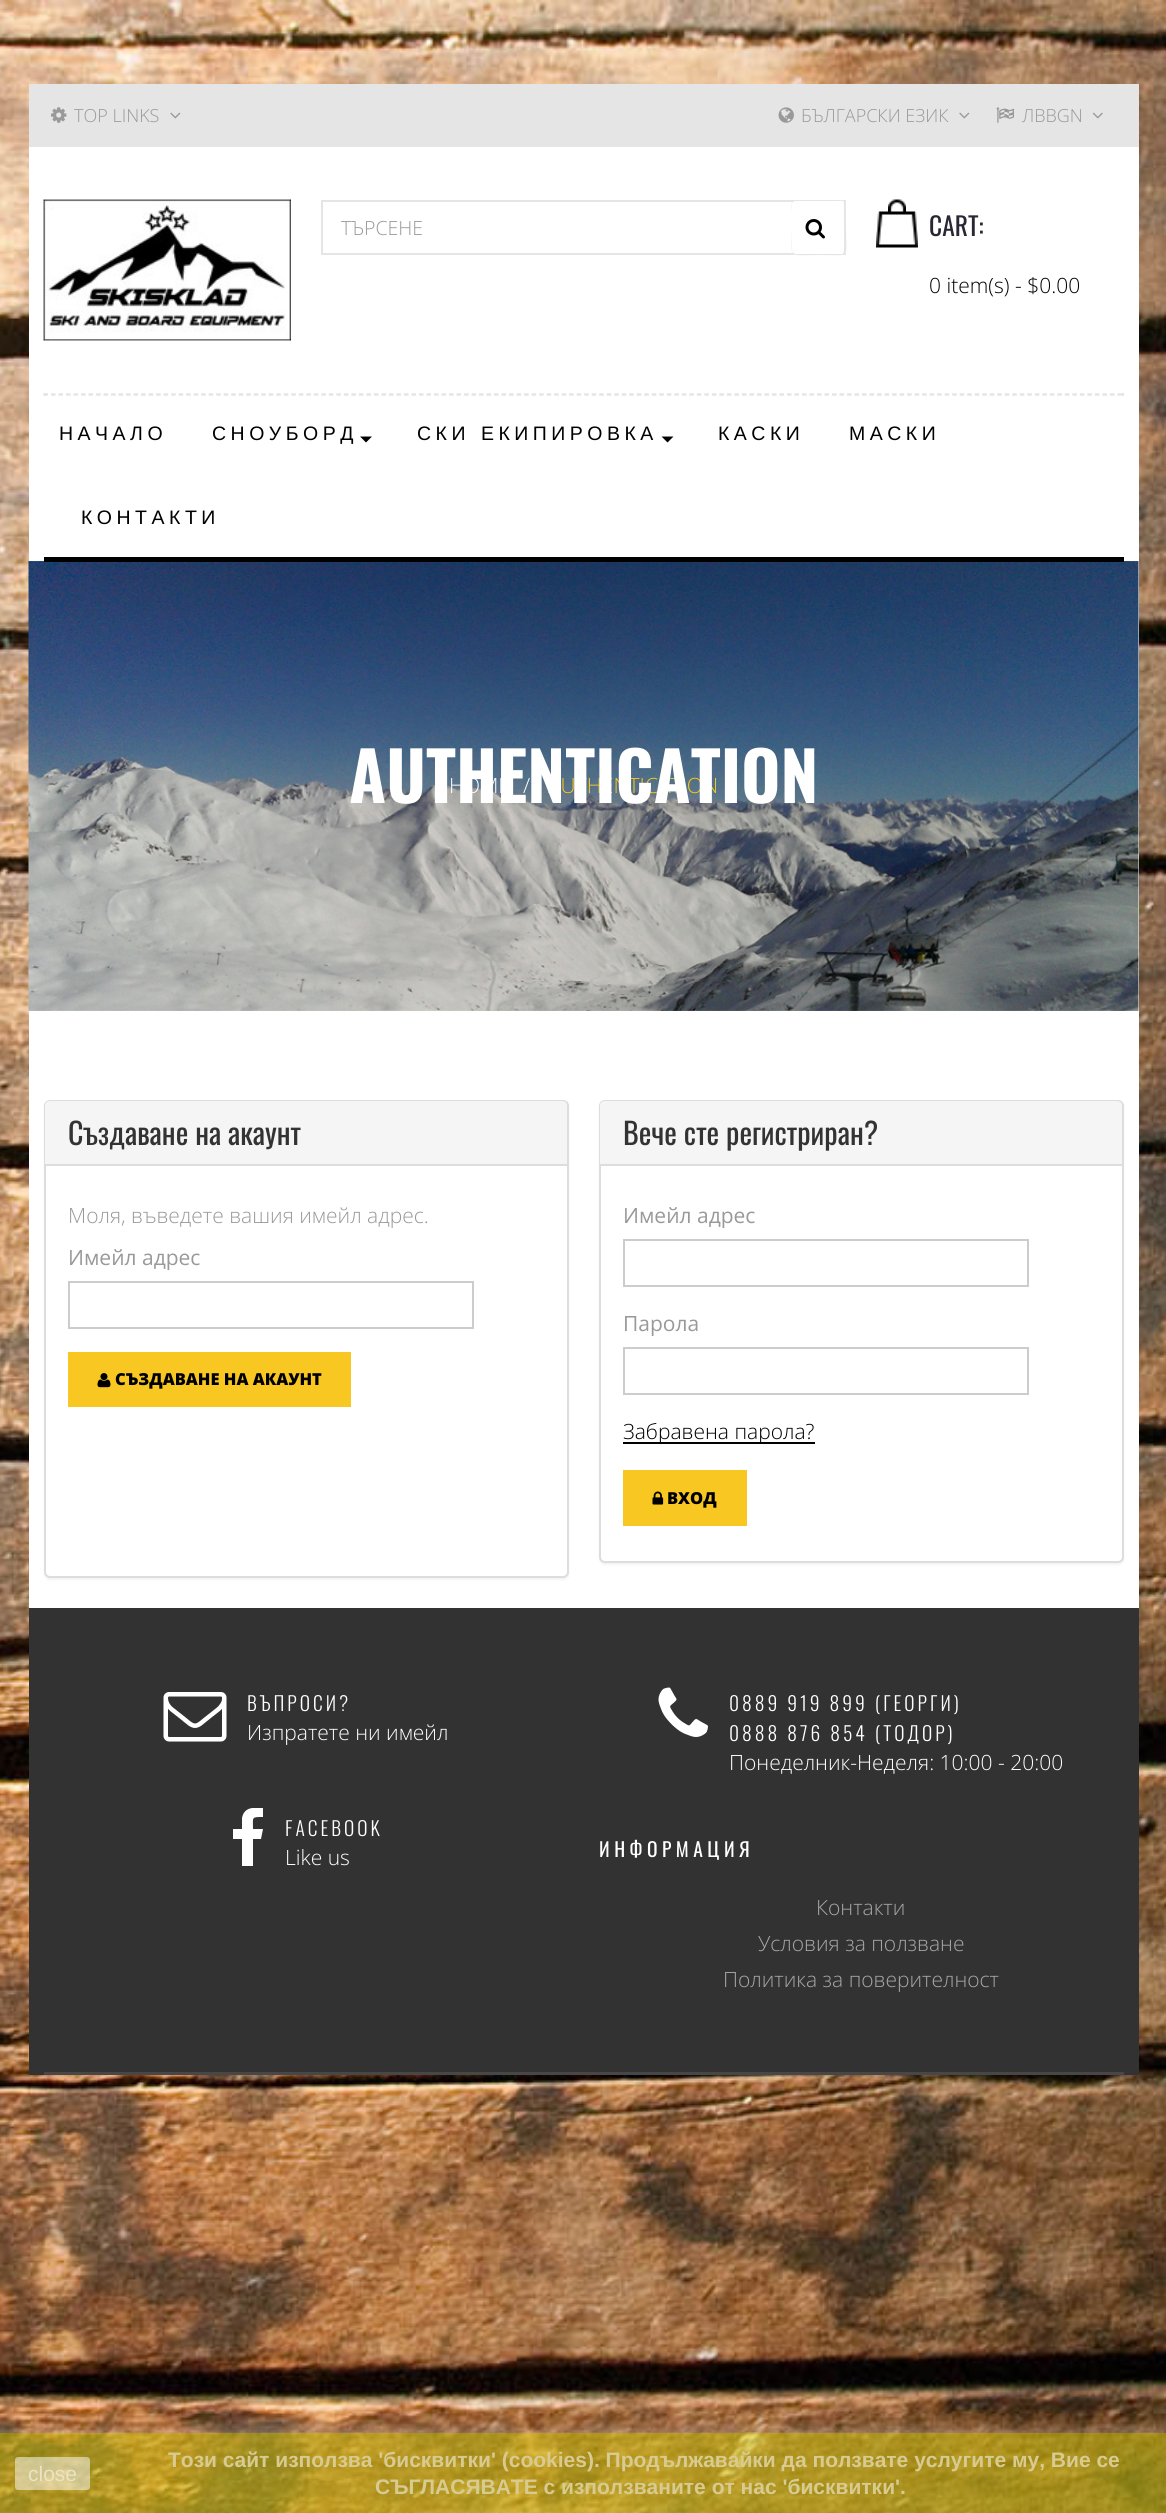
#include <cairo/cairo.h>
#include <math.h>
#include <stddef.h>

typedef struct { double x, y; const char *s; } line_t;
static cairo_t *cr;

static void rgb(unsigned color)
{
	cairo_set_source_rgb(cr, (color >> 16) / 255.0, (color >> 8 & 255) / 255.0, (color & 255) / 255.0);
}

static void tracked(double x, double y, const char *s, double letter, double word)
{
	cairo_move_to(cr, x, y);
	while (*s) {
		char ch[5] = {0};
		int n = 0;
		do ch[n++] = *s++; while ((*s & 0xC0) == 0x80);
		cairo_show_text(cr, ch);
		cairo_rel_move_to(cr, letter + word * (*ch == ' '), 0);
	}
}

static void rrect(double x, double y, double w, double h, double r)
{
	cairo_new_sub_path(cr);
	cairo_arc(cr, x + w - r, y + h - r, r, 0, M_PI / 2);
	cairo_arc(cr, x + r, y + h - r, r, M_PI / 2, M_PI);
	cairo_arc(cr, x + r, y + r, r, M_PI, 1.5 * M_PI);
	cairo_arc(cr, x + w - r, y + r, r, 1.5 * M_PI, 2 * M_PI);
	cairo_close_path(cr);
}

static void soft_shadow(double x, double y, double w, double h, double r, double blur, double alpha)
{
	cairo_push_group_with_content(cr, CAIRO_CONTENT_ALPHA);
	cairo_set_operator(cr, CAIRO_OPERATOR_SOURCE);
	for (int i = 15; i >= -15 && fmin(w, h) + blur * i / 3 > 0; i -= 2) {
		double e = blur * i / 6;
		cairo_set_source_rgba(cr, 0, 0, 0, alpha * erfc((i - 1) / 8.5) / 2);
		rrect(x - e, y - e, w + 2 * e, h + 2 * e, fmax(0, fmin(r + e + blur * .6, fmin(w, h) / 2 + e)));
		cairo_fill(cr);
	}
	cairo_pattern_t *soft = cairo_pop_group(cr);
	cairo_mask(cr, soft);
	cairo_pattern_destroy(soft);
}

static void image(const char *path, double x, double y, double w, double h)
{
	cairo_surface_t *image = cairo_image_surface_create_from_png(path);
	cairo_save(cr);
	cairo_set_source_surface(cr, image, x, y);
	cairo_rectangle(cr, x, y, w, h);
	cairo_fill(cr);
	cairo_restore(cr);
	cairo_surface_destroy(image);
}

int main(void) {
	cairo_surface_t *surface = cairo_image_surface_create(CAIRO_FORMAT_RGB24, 1166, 2513);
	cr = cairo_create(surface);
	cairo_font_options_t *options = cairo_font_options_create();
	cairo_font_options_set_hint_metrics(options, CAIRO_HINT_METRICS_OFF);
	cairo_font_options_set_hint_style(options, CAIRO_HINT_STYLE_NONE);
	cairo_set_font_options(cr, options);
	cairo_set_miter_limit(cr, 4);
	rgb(0xffffff);
	cairo_paint(cr);
	image("img/1.png", 0, 0, 1166, 2513);
	rgb(0xe5e5e5);
	cairo_rectangle(cr, 29, 84, 1110, 63);
	cairo_fill(cr);
	image("img/2.png", 51, 107, 16, 16);
	image("img/3.png", 170, 112, 11, 7);
	image("img/4.png", 778, 107, 16, 16);
	image("img/3.png", 959, 112, 11, 7);
	image("img/5.png", 996, 107, 18, 16);
	image("img/6.png", 1092, 112, 11, 7);
	rgb(0xffffff);
	cairo_rectangle(cr, 29, 147, 1110, 1461);
	cairo_fill(cr);
	image("img/7.png", 43, 199, 248, 142);
	cairo_rectangle(cr, 322, 201, 523, 53);
	rgb(0xe5e5e5);
	cairo_stroke(cr);
	rgb(0xffffff);
	rrect(792, 200, 54, 55, 5);
	cairo_fill(cr);
	rgb(0xe5e5e5);
	cairo_set_fill_rule(cr, CAIRO_FILL_RULE_EVEN_ODD);
	cairo_new_path(cr);
	cairo_move_to(cr, 796, 200);
	cairo_line_to(cr, 834, 200);
	cairo_curve_to(cr, 847, 200, 846, 199, 846, 212);
	cairo_line_to(cr, 846, 227);
	cairo_curve_to(cr, 846, 260, 852, 255, 819, 255);
	cairo_curve_to(cr, 786, 255, 792, 260, 792, 227);
	cairo_line_to(cr, 792, 212);
	cairo_curve_to(cr, 792, 208, 790, 200, 796, 200);
	cairo_close_path(cr);
	cairo_move_to(cr, 796, 201);
	cairo_line_to(cr, 842, 201);
	cairo_curve_to(cr, 843, 201, 844, 202, 844, 204);
	cairo_line_to(cr, 844, 250);
	cairo_curve_to(cr, 844, 252, 843, 254, 842, 254);
	cairo_line_to(cr, 796, 254);
	cairo_curve_to(cr, 794, 254, 792, 252, 792, 250);
	cairo_line_to(cr, 792, 204);
	cairo_curve_to(cr, 792, 202, 794, 201, 796, 201);
	cairo_close_path(cr);
	cairo_fill(cr);
	image("img/8.png", 805, 219, 20, 20);
	image("img/10.png", 876, 211, 42, 37);
	image("img/9.png", 888, 199, 18, 13);
	cairo_new_path(cr);
	cairo_move_to(cr, 43.5, 394);
	cairo_line_to(cr, 1123.5, 394);
	cairo_set_line_width(cr, 1.5);
	cairo_set_dash(cr, (double[]){4.5, 3.01}, 2, 0);
	cairo_stroke(cr);
	cairo_rectangle(cr, 1122, 393, 2, 3);
	cairo_fill(cr);
	cairo_new_path(cr);
	cairo_move_to(cr, 43.5, 395);
	cairo_line_to(cr, 1123.5, 395);
	cairo_stroke(cr);
	cairo_rectangle(cr, 44, 393, 2, 3);
	cairo_fill(cr);
	rgb(0x000000);
	cairo_set_fill_rule(cr, CAIRO_FILL_RULE_WINDING);
	cairo_new_path(cr);
	cairo_move_to(cr, 360, 436.5);
	cairo_line_to(cr, 372, 436.5);
	cairo_line_to(cr, 366, 442.5);
	cairo_close_path(cr);
	cairo_fill(cr);
	cairo_new_path(cr);
	cairo_move_to(cr, 661.5, 436.5);
	cairo_line_to(cr, 673.5, 436.5);
	cairo_line_to(cr, 667.5, 442.5);
	cairo_close_path(cr);
	cairo_fill(cr);
	image("img/13.png", 28, 561, 1111, 450);
	cairo_rectangle(cr, 44, 557, 1080, 5);
	cairo_fill(cr);
	rgb(0x000000);
	soft_shadow(44, 1101, 525, 479, 6, 1, 0.05);
	rgb(0xffffff);
	rrect(45, 1101, 523, 476, 5);
	cairo_fill_preserve(cr);
	rgb(0xdddddd);
	cairo_set_line_width(cr, 2);
	cairo_set_dash(cr, NULL, 0, 0);
	cairo_stroke(cr);
	rgb(0xf5f5f5);
	cairo_new_path(cr);
	cairo_move_to(cr, 50, 1101);
	cairo_line_to(cr, 562, 1101);
	cairo_curve_to(cr, 565, 1101, 567, 1103, 567, 1106);
	cairo_line_to(cr, 567, 1166);
	cairo_line_to(cr, 45, 1166);
	cairo_line_to(cr, 45, 1106);
	cairo_curve_to(cr, 45, 1103, 47, 1101, 50, 1101);
	cairo_close_path(cr);
	cairo_fill(cr);
	rgb(0xdddddd);
	cairo_rectangle(cr, 45, 1164, 522, 2);
	cairo_fill(cr);
	cairo_rectangle(cr, 69, 1282, 404, 46);
	rgb(0xcccccc);
	cairo_stroke(cr);
	rgb(0xf8c722);
	cairo_rectangle(cr, 68, 1352, 283, 55);
	cairo_fill(cr);
	image("img/11.png", 97, 1373, 14, 15);
	rgb(0x000000);
	soft_shadow(599, 1101, 525, 464, 6, 1, 0.05);
	rgb(0xffffff);
	rrect(600, 1101, 523, 461, 5);
	cairo_fill_preserve(cr);
	rgb(0xdddddd);
	cairo_stroke(cr);
	rgb(0xf5f5f5);
	cairo_new_path(cr);
	cairo_move_to(cr, 605, 1101);
	cairo_line_to(cr, 1117, 1101);
	cairo_curve_to(cr, 1120, 1101, 1122, 1103, 1122, 1106);
	cairo_line_to(cr, 1122, 1166);
	cairo_line_to(cr, 600, 1166);
	cairo_line_to(cr, 600, 1106);
	cairo_curve_to(cr, 600, 1103, 602, 1101, 605, 1101);
	cairo_close_path(cr);
	cairo_fill(cr);
	rgb(0xdddddd);
	cairo_rectangle(cr, 600, 1164, 522, 2);
	cairo_fill(cr);
	cairo_rectangle(cr, 624, 1240, 404, 46);
	rgb(0xcccccc);
	cairo_stroke(cr);
	cairo_rectangle(cr, 624, 1348, 404, 46);
	cairo_stroke(cr);
	rgb(0x000000);
	cairo_rectangle(cr, 623, 1442, 192, 2);
	cairo_fill(cr);
	rgb(0xf8c722);
	cairo_rectangle(cr, 623, 1470, 124, 56);
	cairo_fill(cr);
	image("img/12.png", 652, 1491, 12, 14);
	rgb(0x323232);
	cairo_rectangle(cr, 29, 1608, 1110, 467);
	cairo_fill(cr);
	rgb(0x474747);
	cairo_rectangle(cr, 44, 2072, 1080, 3);
	cairo_fill(cr);
	image("img/14.png", 163, 1692, 64, 50);
	image("img/15.png", 658, 1687, 50, 50);
	cairo_save(cr);
	cairo_rectangle(cr, 44, 1808, 525, 64);
	cairo_clip(cr);
	rgb(0xffffff);
	cairo_new_path(cr);
	cairo_move_to(cr, 263, 1808);
	cairo_line_to(cr, 263, 1817);
	cairo_curve_to(cr, 251, 1817, 253, 1817, 253, 1829);
	cairo_line_to(cr, 263, 1829);
	cairo_line_to(cr, 261, 1839);
	cairo_line_to(cr, 253, 1839);
	cairo_line_to(cr, 253, 1866);
	cairo_line_to(cr, 242, 1866);
	cairo_line_to(cr, 242, 1839);
	cairo_line_to(cr, 233, 1839);
	cairo_line_to(cr, 233, 1829);
	cairo_line_to(cr, 242, 1829);
	cairo_line_to(cr, 242, 1818);
	cairo_curve_to(cr, 244, 1807, 254, 1807, 263, 1808);
	cairo_close_path(cr);
	cairo_fill(cr);
	cairo_restore(cr);
	cairo_save(cr);
	cairo_rectangle(cr, 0, 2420, 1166, 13);
	cairo_clip(cr);
	rgb(0xd6d6d6);
	soft_shadow(0, 2433, 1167, 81, 0, 7.5, 0.5);
	cairo_restore(cr);
	cairo_set_source_rgba(cr, 0.851, 0.824, 0.078, 0.5);
	cairo_rectangle(cr, 0, 2433, 1166, 80);
	cairo_fill(cr);
	cairo_set_source_rgba(cr, 1, 1, 1, 0.5);
	rrect(15, 2457, 75, 33, 3);
	cairo_fill(cr);
	cairo_select_font_face(cr, "Open Sans Light", CAIRO_FONT_SLANT_NORMAL, CAIRO_FONT_WEIGHT_NORMAL);
	cairo_set_font_size(cr, 18);
	rgb(0x999999);
	{
		static const line_t items[] = {
			{74, 122, "TOP LINKS"},
			{801, 122, "БЪЛГАРСКИ ЕЗИК"},
			{1022, 122, "ЛВBGN"},
		};
		for (size_t i = 0; i < sizeof items / sizeof *items; i++) {
			cairo_move_to(cr, items[i].x, items[i].y);
			cairo_show_text(cr, items[i].s);
		}
	}
	cairo_set_font_size(cr, 19.5);
	cairo_move_to(cr, 341, 235);
	cairo_show_text(cr, "ТЪРСЕНЕ");
	cairo_select_font_face(cr, "Oswald", CAIRO_FONT_SLANT_NORMAL, CAIRO_FONT_WEIGHT_NORMAL);
	cairo_set_font_size(cr, 25.5);
	rgb(0x292733);
	cairo_move_to(cr, 929, 236);
	cairo_show_text(cr, "CART:");
	cairo_select_font_face(cr, "Open Sans Light", CAIRO_FONT_SLANT_NORMAL, CAIRO_FONT_WEIGHT_NORMAL);
	cairo_set_font_size(cr, 21);
	rgb(0x000000);
	cairo_move_to(cr, 929, 293);
	cairo_show_text(cr, "0 item(s) - $0.00");
	cairo_select_font_face(cr, "Liberation Sans", CAIRO_FONT_SLANT_NORMAL, CAIRO_FONT_WEIGHT_NORMAL);
	cairo_set_font_size(cr, 19.5);
	tracked(59, 440, "НАЧАЛО", 4.5, 0);
	tracked(212, 440, "СНОУБОРД", 4.5, 0);
	tracked(417, 440, "СКИ ЕКИПИРОВКА", 4.5, 1);
	{
		static const line_t items[] = {
			{718, 440, "КАСКИ"},
			{849, 440, "МАСКИ"},
			{81, 524, "КОНТАКТИ"},
		};
		for (size_t i = 0; i < sizeof items / sizeof *items; i++) {
			tracked(items[i].x, items[i].y, items[i].s, 4.5, 0);
		}
	}
	cairo_select_font_face(cr, "Oswald", CAIRO_FONT_SLANT_NORMAL, CAIRO_FONT_WEIGHT_NORMAL);
	cairo_set_font_size(cr, 30);
	rgb(0x333333);
	cairo_move_to(cr, 68, 1145);
	cairo_show_text(cr, "Създаване на акаунт");
	cairo_select_font_face(cr, "Open Sans Light", CAIRO_FONT_SLANT_NORMAL, CAIRO_FONT_WEIGHT_NORMAL);
	cairo_set_font_size(cr, 21);
	rgb(0x999999);
	cairo_move_to(cr, 68, 1223);
	cairo_show_text(cr, "Моля, въведете вашия имейл адрес.");
	cairo_select_font_face(cr, "Open Sans", CAIRO_FONT_SLANT_NORMAL, CAIRO_FONT_WEIGHT_NORMAL);
	cairo_move_to(cr, 68, 1265);
	cairo_show_text(cr, "Имейл адрес");
	cairo_select_font_face(cr, "Open Sans ExtraBold", CAIRO_FONT_SLANT_NORMAL, CAIRO_FONT_WEIGHT_NORMAL);
	cairo_set_font_size(cr, 16.5);
	rgb(0x000000);
	cairo_move_to(cr, 115, 1385);
	cairo_show_text(cr, "СЪЗДАВАНЕ НА АКАУНТ");
	cairo_select_font_face(cr, "Oswald", CAIRO_FONT_SLANT_NORMAL, CAIRO_FONT_WEIGHT_NORMAL);
	cairo_set_font_size(cr, 30);
	rgb(0x333333);
	cairo_move_to(cr, 623, 1145);
	cairo_show_text(cr, "Вече сте регистриран?");
	cairo_select_font_face(cr, "Open Sans", CAIRO_FONT_SLANT_NORMAL, CAIRO_FONT_WEIGHT_NORMAL);
	cairo_set_font_size(cr, 21);
	rgb(0x999999);
	cairo_move_to(cr, 623, 1223);
	cairo_show_text(cr, "Имейл адрес");
	cairo_move_to(cr, 623, 1331);
	cairo_show_text(cr, "Парола");
	cairo_select_font_face(cr, "Open Sans Light", CAIRO_FONT_SLANT_NORMAL, CAIRO_FONT_WEIGHT_NORMAL);
	rgb(0x000000);
	cairo_move_to(cr, 623, 1439);
	cairo_show_text(cr, "Забравена парола?");
	cairo_select_font_face(cr, "Open Sans ExtraBold", CAIRO_FONT_SLANT_NORMAL, CAIRO_FONT_WEIGHT_NORMAL);
	cairo_set_font_size(cr, 16.5);
	cairo_move_to(cr, 667, 1504);
	cairo_show_text(cr, "ВХОД");
	cairo_select_font_face(cr, "Open Sans Light", CAIRO_FONT_SLANT_NORMAL, CAIRO_FONT_WEIGHT_NORMAL);
	cairo_set_font_size(cr, 21);
	rgb(0xffffff);
	cairo_move_to(cr, 449, 793);
	cairo_show_text(cr, "HOME");
	cairo_move_to(cr, 523, 793);
	cairo_show_text(cr, "/");
	rgb(0xf7c720);
	cairo_move_to(cr, 548, 793);
	cairo_show_text(cr, "AUTHENTICATION");
	cairo_select_font_face(cr, "Oswald", CAIRO_FONT_SLANT_NORMAL, CAIRO_FONT_WEIGHT_BOLD);
	cairo_set_font_size(cr, 67.5);
	rgb(0xffffff);
	cairo_move_to(cr, 349, 803);
	cairo_show_text(cr, "AUTHENTICATION");
	cairo_select_font_face(cr, "Oswald Light", CAIRO_FONT_SLANT_NORMAL, CAIRO_FONT_WEIGHT_NORMAL);
	cairo_set_font_size(cr, 19.5);
	tracked(247, 1711, "ВЪПРОСИ?", 3, 0);
	cairo_select_font_face(cr, "Open Sans Light", CAIRO_FONT_SLANT_NORMAL, CAIRO_FONT_WEIGHT_NORMAL);
	cairo_set_font_size(cr, 21);
	cairo_move_to(cr, 247, 1740);
	cairo_show_text(cr, "Изпратете ни имейл");
	cairo_select_font_face(cr, "Oswald Light", CAIRO_FONT_SLANT_NORMAL, CAIRO_FONT_WEIGHT_NORMAL);
	cairo_set_font_size(cr, 19.5);
	tracked(729, 1711, "0889 919 899 (ГЕОРГИ)", 3, 0);
	tracked(729, 1741, "0888 876 854 (ТОДОР)", 3, 0);
	cairo_select_font_face(cr, "Open Sans Light", CAIRO_FONT_SLANT_NORMAL, CAIRO_FONT_WEIGHT_NORMAL);
	cairo_set_font_size(cr, 21);
	cairo_move_to(cr, 729, 1770);
	cairo_show_text(cr, "Понеделник-Неделя: 10:00 - 20:00");
	cairo_select_font_face(cr, "Oswald Light", CAIRO_FONT_SLANT_NORMAL, CAIRO_FONT_WEIGHT_NORMAL);
	cairo_set_font_size(cr, 19.5);
	tracked(285, 1836, "FACEBOOK", 3, 0);
	cairo_select_font_face(cr, "Open Sans Light", CAIRO_FONT_SLANT_NORMAL, CAIRO_FONT_WEIGHT_NORMAL);
	cairo_set_font_size(cr, 21);
	cairo_move_to(cr, 285, 1865);
	cairo_show_text(cr, "Like us");
	cairo_select_font_face(cr, "Oswald", CAIRO_FONT_SLANT_NORMAL, CAIRO_FONT_WEIGHT_NORMAL);
	cairo_set_font_size(cr, 19.5);
	tracked(599, 1857, "ИНФОРМАЦИЯ", 4.5, 0);
	cairo_select_font_face(cr, "Open Sans Light", CAIRO_FONT_SLANT_NORMAL, CAIRO_FONT_WEIGHT_NORMAL);
	cairo_set_font_size(cr, 21);
	rgb(0xa6a6a6);
	{
		static const line_t items[] = {
			{816, 1915, "Контакти"},
			{758, 1951, "Условия за ползване"},
			{723, 1987, "Политика за поверителност"},
		};
		for (size_t i = 0; i < sizeof items / sizeof *items; i++) {
			cairo_move_to(cr, items[i].x, items[i].y);
			cairo_show_text(cr, items[i].s);
		}
	}
	cairo_select_font_face(cr, "Liberation Sans", CAIRO_FONT_SLANT_NORMAL, CAIRO_FONT_WEIGHT_NORMAL);
	rgb(0xeae4c7);
	cairo_move_to(cr, 28, 2481);
	cairo_show_text(cr, "close");
	cairo_select_font_face(cr, "Liberation Sans", CAIRO_FONT_SLANT_NORMAL, CAIRO_FONT_WEIGHT_BOLD);
	rgb(0xd8cb92);
	cairo_move_to(cr, 168, 2467);
	cairo_show_text(cr, "Този сайт използва 'бисквитки' (cookies). Продължавайки да ползвате услугите му, Вие се");
	cairo_move_to(cr, 375, 2494);
	cairo_show_text(cr, "СЪГЛАСЯВАТЕ с използваните от нас 'бисквитки'.");
	cairo_surface_write_to_png(surface, "page.png");
	cairo_font_options_destroy(options);
	cairo_destroy(cr);
	cairo_surface_destroy(surface);
	return 0;
}
